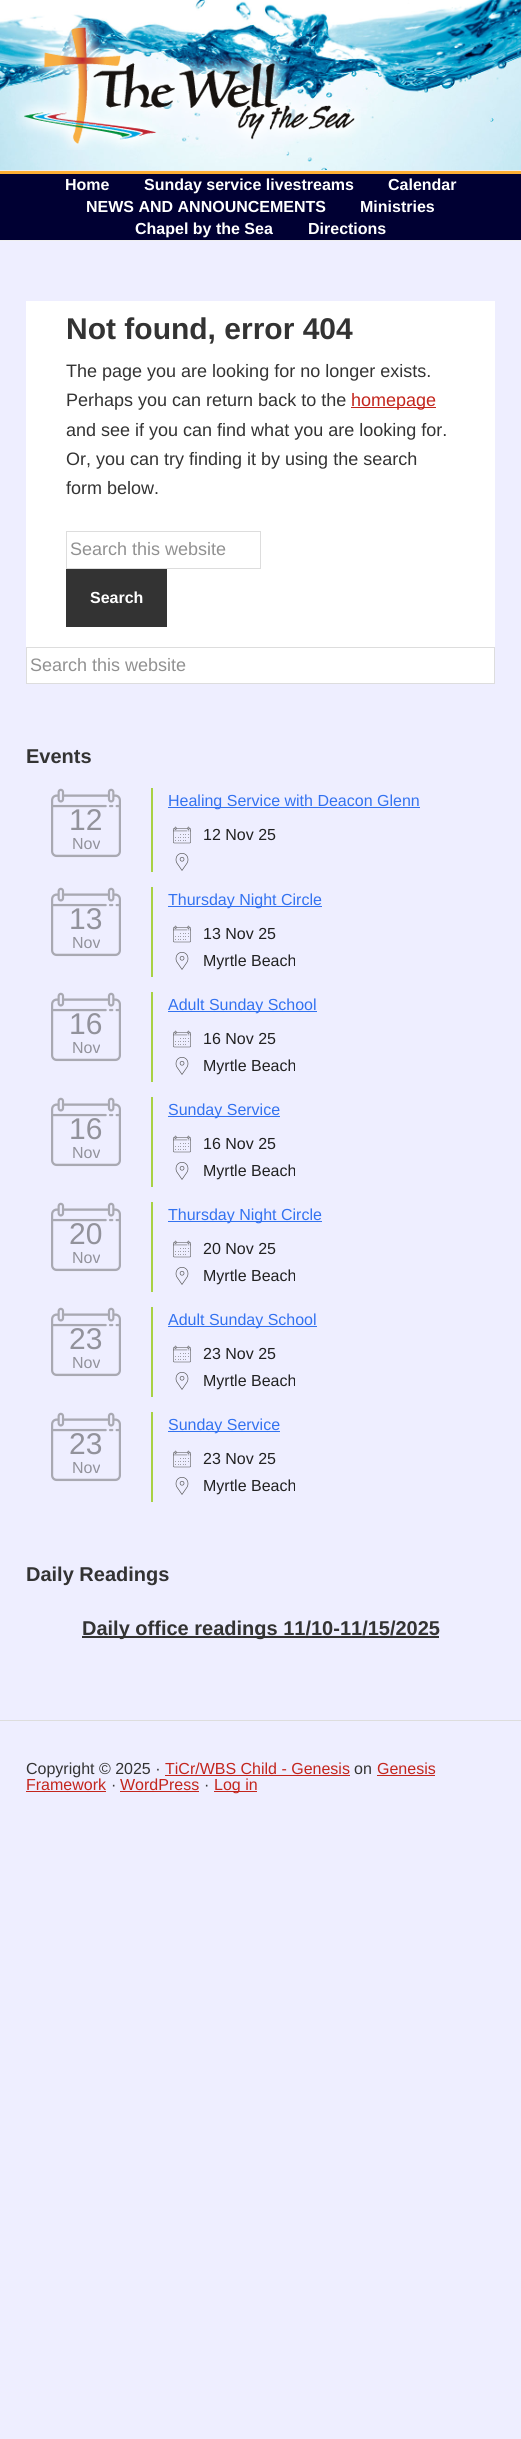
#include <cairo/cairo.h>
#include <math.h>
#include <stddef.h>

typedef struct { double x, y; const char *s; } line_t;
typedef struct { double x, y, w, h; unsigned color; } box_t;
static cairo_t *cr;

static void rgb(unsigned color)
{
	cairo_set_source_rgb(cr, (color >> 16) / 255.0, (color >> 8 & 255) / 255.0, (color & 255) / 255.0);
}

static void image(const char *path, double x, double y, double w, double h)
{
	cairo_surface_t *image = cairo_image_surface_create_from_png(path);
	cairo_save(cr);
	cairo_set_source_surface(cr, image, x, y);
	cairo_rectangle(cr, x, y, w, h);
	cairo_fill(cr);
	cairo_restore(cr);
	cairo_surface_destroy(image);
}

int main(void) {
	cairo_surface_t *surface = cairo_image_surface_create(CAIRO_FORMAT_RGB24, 521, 2439);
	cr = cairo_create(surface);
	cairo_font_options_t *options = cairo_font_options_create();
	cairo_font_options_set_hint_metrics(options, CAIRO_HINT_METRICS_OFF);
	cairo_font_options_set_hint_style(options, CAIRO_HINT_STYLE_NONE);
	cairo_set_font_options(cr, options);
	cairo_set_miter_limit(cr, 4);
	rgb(0xeeeeff);
	cairo_paint(cr);
	image("img/1.png", 0, 0, 521, 170);
	rgb(0xeeeeee);
	cairo_rectangle(cr, 0, 170, 521, 1);
	cairo_fill(cr);
	image("img/2.png", 16, 20, 345, 130);
	{
		static const box_t items[] = {
			{0, 174, 521, 66, 0x000033},
			{0, 171, 521, 3, 0xffaf33},
			{0, 240, 521, 1, 0xeeeeee},
			{26, 301, 469, 346, 0xffffff},
			{351, 407, 85, 1, 0xc3251d},
		};
		for (size_t i = 0; i < sizeof items / sizeof *items; i++) {
			rgb(items[i].color);
			cairo_rectangle(cr, items[i].x, items[i].y, items[i].w, items[i].h);
			cairo_fill(cr);
		}
	}
	cairo_rectangle(cr, 66.5, 531.5, 194, 37);
	rgb(0xdddddd);
	cairo_set_line_width(cr, 1);
	cairo_stroke(cr);
	rgb(0x333333);
	cairo_rectangle(cr, 66, 569, 101, 58);
	cairo_fill(cr);
	rgb(0xffffff);
	cairo_rectangle(cr, 26.5, 647.5, 468, 36);
	cairo_fill_preserve(cr);
	rgb(0xdddddd);
	cairo_stroke(cr);
	image("img/3.png", 51, 788, 70, 70);
	rgb(0xa8d144);
	cairo_rectangle(cr, 151, 788, 2, 84);
	cairo_fill(cr);
	rgb(0x3372f0);
	cairo_rectangle(cr, 168, 807, 252, 1);
	cairo_fill(cr);
	image("img/4.png", 173, 826, 18, 18);
	image("img/5.png", 175, 853, 14, 18);
	image("img/3.png", 51, 887, 70, 70);
	rgb(0xa8d144);
	cairo_rectangle(cr, 151, 887, 2, 90);
	cairo_fill(cr);
	rgb(0x3372f0);
	cairo_rectangle(cr, 168, 906, 154, 1);
	cairo_fill(cr);
	image("img/4.png", 173, 925, 18, 18);
	image("img/5.png", 175, 952, 14, 18);
	image("img/3.png", 51, 992, 70, 70);
	rgb(0xa8d144);
	cairo_rectangle(cr, 151, 992, 2, 90);
	cairo_fill(cr);
	rgb(0x3372f0);
	cairo_rectangle(cr, 168, 1011, 149, 1);
	cairo_fill(cr);
	image("img/4.png", 173, 1030, 18, 18);
	image("img/5.png", 175, 1057, 14, 18);
	image("img/3.png", 51, 1097, 70, 70);
	rgb(0xa8d144);
	cairo_rectangle(cr, 151, 1097, 2, 90);
	cairo_fill(cr);
	rgb(0x3372f0);
	cairo_rectangle(cr, 168, 1116, 112, 1);
	cairo_fill(cr);
	image("img/4.png", 173, 1135, 18, 18);
	image("img/5.png", 175, 1162, 14, 18);
	image("img/3.png", 51, 1202, 70, 70);
	rgb(0xa8d144);
	cairo_rectangle(cr, 151, 1202, 2, 90);
	cairo_fill(cr);
	rgb(0x3372f0);
	cairo_rectangle(cr, 168, 1221, 154, 1);
	cairo_fill(cr);
	image("img/4.png", 173, 1240, 18, 18);
	image("img/5.png", 175, 1267, 14, 18);
	image("img/3.png", 51, 1307, 70, 70);
	rgb(0xa8d144);
	cairo_rectangle(cr, 151, 1307, 2, 90);
	cairo_fill(cr);
	rgb(0x3372f0);
	cairo_rectangle(cr, 168, 1326, 149, 1);
	cairo_fill(cr);
	image("img/4.png", 173, 1345, 18, 18);
	image("img/5.png", 175, 1372, 14, 18);
	image("img/3.png", 51, 1412, 70, 70);
	rgb(0xa8d144);
	cairo_rectangle(cr, 151, 1412, 2, 90);
	cairo_fill(cr);
	rgb(0x3372f0);
	cairo_rectangle(cr, 168, 1431, 112, 1);
	cairo_fill(cr);
	image("img/4.png", 173, 1450, 18, 18);
	image("img/5.png", 175, 1477, 14, 18);
	{
		static const box_t items[] = {
			{82, 1636, 357, 2, 0x333333},
			{0, 1720, 521, 1, 0xdddddd},
			{165, 1775, 185, 1, 0xc3251d},
			{377, 1775, 58, 1, 0xc3251d},
			{26, 1791, 80, 1, 0xc3251d},
			{120, 1791, 79, 1, 0xc3251d},
			{214, 1791, 43, 1, 0xc3251d},
		};
		for (size_t i = 0; i < sizeof items / sizeof *items; i++) {
			rgb(items[i].color);
			cairo_rectangle(cr, items[i].x, items[i].y, items[i].w, items[i].h);
			cairo_fill(cr);
		}
	}
	cairo_select_font_face(cr, "Liberation Sans", CAIRO_FONT_SLANT_NORMAL, CAIRO_FONT_WEIGHT_BOLD);
	cairo_set_font_size(cr, 16);
	rgb(0xffffff);
	{
		static const line_t items[] = {
			{65, 190, "Home"},
			{144, 190, "Sunday service livestreams"},
			{388, 190, "Calendar"},
			{86, 212, "NEWS AND ANNOUNCEMENTS"},
			{360, 212, "Ministries"},
			{135, 234, "Chapel by the Sea"},
			{308, 234, "Directions"},
		};
		for (size_t i = 0; i < sizeof items / sizeof *items; i++) {
			cairo_move_to(cr, items[i].x, items[i].y);
			cairo_show_text(cr, items[i].s);
		}
	}
	cairo_set_font_size(cr, 30);
	rgb(0x333333);
	cairo_move_to(cr, 66, 339);
	cairo_show_text(cr, "Not found, error 404");
	cairo_select_font_face(cr, "Liberation Sans", CAIRO_FONT_SLANT_NORMAL, CAIRO_FONT_WEIGHT_NORMAL);
	cairo_set_font_size(cr, 18);
	cairo_move_to(cr, 66, 377);
	cairo_show_text(cr, "The page you are looking for no longer exists.");
	cairo_move_to(cr, 66, 406);
	cairo_show_text(cr, "Perhaps you can return back to the");
	rgb(0xc3251d);
	cairo_move_to(cr, 351, 406);
	cairo_show_text(cr, "homepage");
	rgb(0x333333);
	{
		static const line_t items[] = {
			{66, 436, "and see if you can find what you are looking for."},
			{66, 465, "Or, you can try finding it by using the search"},
			{66, 494, "form below."},
		};
		for (size_t i = 0; i < sizeof items / sizeof *items; i++) {
			cairo_move_to(cr, items[i].x, items[i].y);
			cairo_show_text(cr, items[i].s);
		}
	}
	rgb(0x919191);
	cairo_move_to(cr, 70, 555);
	cairo_show_text(cr, "Search this website");
	cairo_select_font_face(cr, "Liberation Sans", CAIRO_FONT_SLANT_NORMAL, CAIRO_FONT_WEIGHT_BOLD);
	cairo_set_font_size(cr, 16);
	rgb(0xffffff);
	cairo_move_to(cr, 90, 603);
	cairo_show_text(cr, "Search");
	cairo_select_font_face(cr, "Liberation Sans", CAIRO_FONT_SLANT_NORMAL, CAIRO_FONT_WEIGHT_NORMAL);
	cairo_set_font_size(cr, 18);
	rgb(0x919191);
	cairo_move_to(cr, 30, 671);
	cairo_show_text(cr, "Search this website");
	cairo_select_font_face(cr, "Liberation Sans", CAIRO_FONT_SLANT_NORMAL, CAIRO_FONT_WEIGHT_BOLD);
	cairo_set_font_size(cr, 20);
	rgb(0x333333);
	cairo_move_to(cr, 26, 763);
	cairo_show_text(cr, "Events");
	cairo_select_font_face(cr, "Liberation Sans", CAIRO_FONT_SLANT_NORMAL, CAIRO_FONT_WEIGHT_NORMAL);
	cairo_set_font_size(cr, 30);
	rgb(0x92929b);
	cairo_move_to(cr, 69, 830);
	cairo_show_text(cr, "12");
	cairo_set_font_size(cr, 16);
	cairo_move_to(cr, 72, 849);
	cairo_show_text(cr, "Nov");
	rgb(0x3372f0);
	cairo_move_to(cr, 168, 806);
	cairo_show_text(cr, "Healing Service with Deacon Glenn");
	rgb(0x212121);
	cairo_move_to(cr, 203, 840);
	cairo_show_text(cr, "12 Nov 25");
	cairo_set_font_size(cr, 30);
	rgb(0x92929b);
	cairo_move_to(cr, 69, 929);
	cairo_show_text(cr, "13");
	cairo_set_font_size(cr, 16);
	cairo_move_to(cr, 72, 948);
	cairo_show_text(cr, "Nov");
	rgb(0x3372f0);
	cairo_move_to(cr, 168, 905);
	cairo_show_text(cr, "Thursday Night Circle");
	rgb(0x212121);
	cairo_move_to(cr, 203, 939);
	cairo_show_text(cr, "13 Nov 25");
	cairo_move_to(cr, 203, 966);
	cairo_show_text(cr, "Myrtle Beach");
	cairo_set_font_size(cr, 30);
	rgb(0x92929b);
	cairo_move_to(cr, 69, 1034);
	cairo_show_text(cr, "16");
	cairo_set_font_size(cr, 16);
	cairo_move_to(cr, 72, 1053);
	cairo_show_text(cr, "Nov");
	rgb(0x3372f0);
	cairo_move_to(cr, 168, 1010);
	cairo_show_text(cr, "Adult Sunday School");
	rgb(0x212121);
	cairo_move_to(cr, 203, 1044);
	cairo_show_text(cr, "16 Nov 25");
	cairo_move_to(cr, 203, 1071);
	cairo_show_text(cr, "Myrtle Beach");
	cairo_set_font_size(cr, 30);
	rgb(0x92929b);
	cairo_move_to(cr, 69, 1139);
	cairo_show_text(cr, "16");
	cairo_set_font_size(cr, 16);
	cairo_move_to(cr, 72, 1158);
	cairo_show_text(cr, "Nov");
	rgb(0x3372f0);
	cairo_move_to(cr, 168, 1115);
	cairo_show_text(cr, "Sunday Service");
	rgb(0x212121);
	cairo_move_to(cr, 203, 1149);
	cairo_show_text(cr, "16 Nov 25");
	cairo_move_to(cr, 203, 1176);
	cairo_show_text(cr, "Myrtle Beach");
	cairo_set_font_size(cr, 30);
	rgb(0x92929b);
	cairo_move_to(cr, 69, 1244);
	cairo_show_text(cr, "20");
	cairo_set_font_size(cr, 16);
	cairo_move_to(cr, 72, 1263);
	cairo_show_text(cr, "Nov");
	rgb(0x3372f0);
	cairo_move_to(cr, 168, 1220);
	cairo_show_text(cr, "Thursday Night Circle");
	rgb(0x212121);
	cairo_move_to(cr, 203, 1254);
	cairo_show_text(cr, "20 Nov 25");
	cairo_move_to(cr, 203, 1281);
	cairo_show_text(cr, "Myrtle Beach");
	cairo_set_font_size(cr, 30);
	rgb(0x92929b);
	cairo_move_to(cr, 69, 1349);
	cairo_show_text(cr, "23");
	cairo_set_font_size(cr, 16);
	cairo_move_to(cr, 72, 1368);
	cairo_show_text(cr, "Nov");
	rgb(0x3372f0);
	cairo_move_to(cr, 168, 1325);
	cairo_show_text(cr, "Adult Sunday School");
	rgb(0x212121);
	cairo_move_to(cr, 203, 1359);
	cairo_show_text(cr, "23 Nov 25");
	cairo_move_to(cr, 203, 1386);
	cairo_show_text(cr, "Myrtle Beach");
	cairo_set_font_size(cr, 30);
	rgb(0x92929b);
	cairo_move_to(cr, 69, 1454);
	cairo_show_text(cr, "23");
	cairo_set_font_size(cr, 16);
	cairo_move_to(cr, 72, 1473);
	cairo_show_text(cr, "Nov");
	rgb(0x3372f0);
	cairo_move_to(cr, 168, 1430);
	cairo_show_text(cr, "Sunday Service");
	rgb(0x212121);
	cairo_move_to(cr, 203, 1464);
	cairo_show_text(cr, "23 Nov 25");
	cairo_move_to(cr, 203, 1491);
	cairo_show_text(cr, "Myrtle Beach");
	cairo_select_font_face(cr, "Liberation Sans", CAIRO_FONT_SLANT_NORMAL, CAIRO_FONT_WEIGHT_BOLD);
	cairo_set_font_size(cr, 20);
	rgb(0x333333);
	cairo_move_to(cr, 26, 1581);
	cairo_show_text(cr, "Daily Readings");
	cairo_move_to(cr, 82, 1635);
	cairo_show_text(cr, "Daily office readings 11/10-11/15/2025");
	cairo_select_font_face(cr, "Liberation Sans", CAIRO_FONT_SLANT_NORMAL, CAIRO_FONT_WEIGHT_NORMAL);
	cairo_set_font_size(cr, 16);
	cairo_move_to(cr, 26, 1774);
	cairo_show_text(cr, "Copyright © 2025 ·");
	rgb(0xc3251d);
	cairo_move_to(cr, 165, 1774);
	cairo_show_text(cr, "TiCr/WBS Child - Genesis");
	rgb(0x333333);
	cairo_move_to(cr, 354, 1774);
	cairo_show_text(cr, "on");
	rgb(0xc3251d);
	cairo_move_to(cr, 377, 1774);
	cairo_show_text(cr, "Genesis");
	cairo_move_to(cr, 26, 1790);
	cairo_show_text(cr, "Framework");
	rgb(0x333333);
	cairo_move_to(cr, 111, 1790);
	cairo_show_text(cr, "·");
	rgb(0xc3251d);
	cairo_move_to(cr, 120, 1790);
	cairo_show_text(cr, "WordPress");
	rgb(0x333333);
	cairo_move_to(cr, 204, 1790);
	cairo_show_text(cr, "·");
	rgb(0xc3251d);
	cairo_move_to(cr, 214, 1790);
	cairo_show_text(cr, "Log in");
	cairo_surface_write_to_png(surface, "page.png");
	cairo_font_options_destroy(options);
	cairo_destroy(cr);
	cairo_surface_destroy(surface);
	return 0;
}
